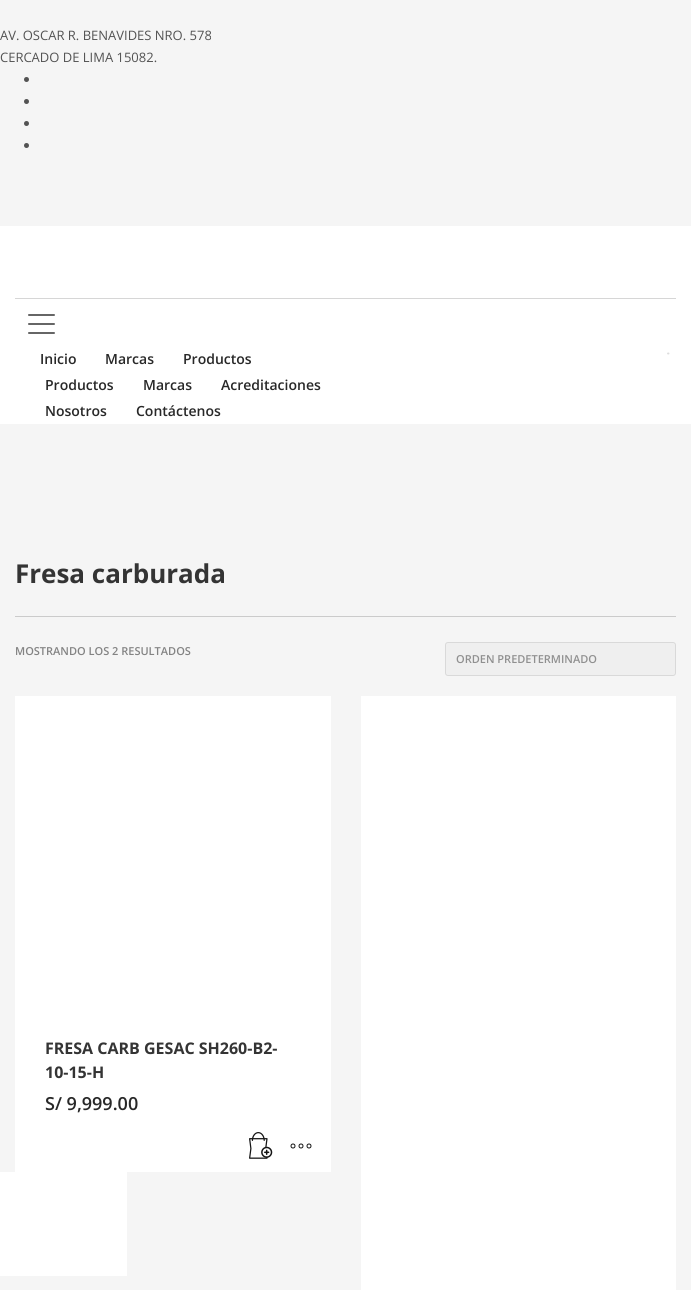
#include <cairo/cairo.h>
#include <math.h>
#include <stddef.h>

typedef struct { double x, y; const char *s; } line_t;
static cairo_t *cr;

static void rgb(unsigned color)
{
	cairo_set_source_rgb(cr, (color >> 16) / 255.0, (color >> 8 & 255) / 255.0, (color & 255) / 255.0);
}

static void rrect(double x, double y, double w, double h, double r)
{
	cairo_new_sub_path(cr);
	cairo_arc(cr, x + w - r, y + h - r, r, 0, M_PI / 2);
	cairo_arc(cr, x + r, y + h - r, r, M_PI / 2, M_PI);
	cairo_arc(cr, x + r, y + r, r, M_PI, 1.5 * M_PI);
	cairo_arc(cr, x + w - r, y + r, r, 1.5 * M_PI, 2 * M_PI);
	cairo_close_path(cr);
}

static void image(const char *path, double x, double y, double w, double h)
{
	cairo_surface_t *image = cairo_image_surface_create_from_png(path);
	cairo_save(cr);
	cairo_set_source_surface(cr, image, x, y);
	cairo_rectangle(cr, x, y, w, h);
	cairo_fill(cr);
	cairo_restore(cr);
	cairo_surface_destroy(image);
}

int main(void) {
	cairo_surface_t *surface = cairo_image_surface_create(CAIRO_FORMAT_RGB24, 691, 1290);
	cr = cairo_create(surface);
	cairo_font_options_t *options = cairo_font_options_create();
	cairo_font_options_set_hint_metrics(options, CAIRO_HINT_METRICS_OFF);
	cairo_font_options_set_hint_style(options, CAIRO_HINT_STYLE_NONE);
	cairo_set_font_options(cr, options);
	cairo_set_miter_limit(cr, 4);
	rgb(0xf5f5f5);
	cairo_paint(cr);
	rgb(0x535353);
	cairo_arc(cr, 26.5, 79.5, 2.5, 0, 2 * M_PI);
	cairo_fill(cr);
	cairo_arc(cr, 26.5, 101.5, 2.5, 0, 2 * M_PI);
	cairo_fill(cr);
	cairo_arc(cr, 26.5, 123.5, 2.5, 0, 2 * M_PI);
	cairo_fill(cr);
	cairo_arc(cr, 26.5, 145.5, 2.5, 0, 2 * M_PI);
	cairo_fill(cr);
	rgb(0xffffff);
	cairo_rectangle(cr, 0, 226, 691, 198);
	cairo_fill(cr);
	rgb(0xd6d6d6);
	cairo_rectangle(cr, 15, 298, 661, 1);
	cairo_fill(cr);
	rgb(0x666666);
	rrect(28, 314, 27, 2, 1);
	cairo_fill(cr);
	rrect(28, 323, 27, 2, 1);
	cairo_fill(cr);
	rrect(28, 332, 27, 2, 1);
	cairo_fill(cr);
	cairo_new_path(cr);
	cairo_move_to(cr, 668, 353.5);
	cairo_line_to(cr, 668.5, 353.5);
	rgb(0xdddddd);
	cairo_set_line_width(cr, 1.9);
	cairo_set_line_cap(cr, CAIRO_LINE_CAP_ROUND);
	cairo_stroke(cr);
	rgb(0xcbcbcb);
	cairo_rectangle(cr, 15, 616, 661, 1);
	cairo_fill(cr);
	rgb(0xefefef);
	rrect(445.5, 642.5, 230, 33, 2.5);
	cairo_fill_preserve(cr);
	rgb(0xd9d9d9);
	cairo_set_line_width(cr, 1);
	cairo_set_line_cap(cr, CAIRO_LINE_CAP_BUTT);
	cairo_stroke(cr);
	rgb(0xffffff);
	cairo_rectangle(cr, 15, 696, 316, 476);
	cairo_fill(cr);
	image("img/1.png", 249, 1132, 24, 27);
	cairo_arc(cr, 293, 1146, 2, 0, 2 * M_PI);
	rgb(0x141414);
	cairo_stroke(cr);
	cairo_arc(cr, 301, 1146, 2, 0, 2 * M_PI);
	cairo_stroke(cr);
	cairo_arc(cr, 309, 1146, 2, 0, 2 * M_PI);
	cairo_stroke(cr);
	rgb(0xffffff);
	cairo_rectangle(cr, 361, 696, 315, 594);
	cairo_fill(cr);
	cairo_rectangle(cr, 0, 1172, 127, 104);
	cairo_fill(cr);
	cairo_select_font_face(cr, "Open Sans", CAIRO_FONT_SLANT_NORMAL, CAIRO_FONT_WEIGHT_NORMAL);
	cairo_set_font_size(cr, 13);
	rgb(0x535353);
	cairo_move_to(cr, 0, 40);
	cairo_show_text(cr, "AV. OSCAR R. BENAVIDES NRO. 578");
	cairo_move_to(cr, 0, 62);
	cairo_show_text(cr, "CERCADO DE LIMA 15082.");
	cairo_select_font_face(cr, "Open Sans SemiBold", CAIRO_FONT_SLANT_NORMAL, CAIRO_FONT_WEIGHT_NORMAL);
	cairo_set_font_size(cr, 14);
	rgb(0x282828);
	{
		static const line_t items[] = {
			{40, 364, "Inicio"},
			{105, 364, "Marcas"},
			{183, 364, "Productos"},
			{45, 390, "Productos"},
			{143, 390, "Marcas"},
			{221, 390, "Acreditaciones"},
			{45, 416, "Nosotros"},
			{136, 416, "Contáctenos"},
		};
		for (size_t i = 0; i < sizeof items / sizeof *items; i++) {
			cairo_move_to(cr, items[i].x, items[i].y);
			cairo_show_text(cr, items[i].s);
		}
	}
	cairo_select_font_face(cr, "Open Sans", CAIRO_FONT_SLANT_NORMAL, CAIRO_FONT_WEIGHT_BOLD);
	cairo_set_font_size(cr, 26);
	rgb(0x343434);
	cairo_move_to(cr, 15, 583);
	cairo_show_text(cr, "Fresa carburada");
	cairo_select_font_face(cr, "Open Sans SemiBold", CAIRO_FONT_SLANT_NORMAL, CAIRO_FONT_WEIGHT_NORMAL);
	cairo_set_font_size(cr, 11);
	rgb(0x838383);
	cairo_move_to(cr, 15, 655);
	cairo_show_text(cr, "MOSTRANDO LOS 2 RESULTADOS");
	rgb(0x909090);
	cairo_move_to(cr, 456, 663);
	cairo_show_text(cr, "ORDEN PREDETERMINADO");
	cairo_select_font_face(cr, "Open Sans", CAIRO_FONT_SLANT_NORMAL, CAIRO_FONT_WEIGHT_BOLD);
	cairo_set_font_size(cr, 16);
	rgb(0x343434);
	cairo_move_to(cr, 45, 1054);
	cairo_show_text(cr, "FRESA CARB GESAC SH260-B2-");
	cairo_move_to(cr, 45, 1078);
	cairo_show_text(cr, "10-15-H");
	cairo_select_font_face(cr, "Open Sans SemiBold", CAIRO_FONT_SLANT_NORMAL, CAIRO_FONT_WEIGHT_NORMAL);
	cairo_set_font_size(cr, 18);
	rgb(0x282828);
	cairo_move_to(cr, 45, 1110);
	cairo_show_text(cr, "S/ 9,999.00");
	cairo_surface_write_to_png(surface, "page.png");
	cairo_font_options_destroy(options);
	cairo_destroy(cr);
	cairo_surface_destroy(surface);
	return 0;
}
